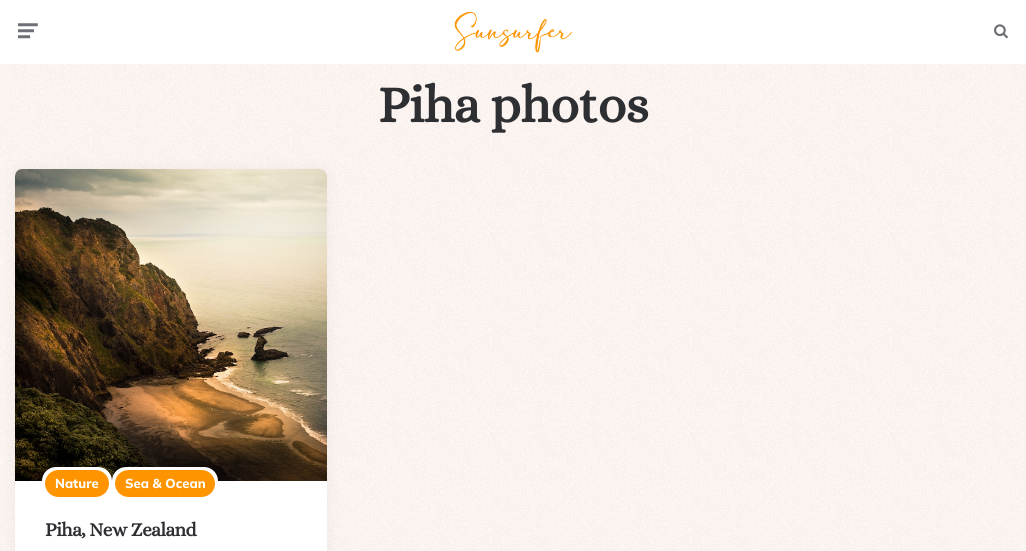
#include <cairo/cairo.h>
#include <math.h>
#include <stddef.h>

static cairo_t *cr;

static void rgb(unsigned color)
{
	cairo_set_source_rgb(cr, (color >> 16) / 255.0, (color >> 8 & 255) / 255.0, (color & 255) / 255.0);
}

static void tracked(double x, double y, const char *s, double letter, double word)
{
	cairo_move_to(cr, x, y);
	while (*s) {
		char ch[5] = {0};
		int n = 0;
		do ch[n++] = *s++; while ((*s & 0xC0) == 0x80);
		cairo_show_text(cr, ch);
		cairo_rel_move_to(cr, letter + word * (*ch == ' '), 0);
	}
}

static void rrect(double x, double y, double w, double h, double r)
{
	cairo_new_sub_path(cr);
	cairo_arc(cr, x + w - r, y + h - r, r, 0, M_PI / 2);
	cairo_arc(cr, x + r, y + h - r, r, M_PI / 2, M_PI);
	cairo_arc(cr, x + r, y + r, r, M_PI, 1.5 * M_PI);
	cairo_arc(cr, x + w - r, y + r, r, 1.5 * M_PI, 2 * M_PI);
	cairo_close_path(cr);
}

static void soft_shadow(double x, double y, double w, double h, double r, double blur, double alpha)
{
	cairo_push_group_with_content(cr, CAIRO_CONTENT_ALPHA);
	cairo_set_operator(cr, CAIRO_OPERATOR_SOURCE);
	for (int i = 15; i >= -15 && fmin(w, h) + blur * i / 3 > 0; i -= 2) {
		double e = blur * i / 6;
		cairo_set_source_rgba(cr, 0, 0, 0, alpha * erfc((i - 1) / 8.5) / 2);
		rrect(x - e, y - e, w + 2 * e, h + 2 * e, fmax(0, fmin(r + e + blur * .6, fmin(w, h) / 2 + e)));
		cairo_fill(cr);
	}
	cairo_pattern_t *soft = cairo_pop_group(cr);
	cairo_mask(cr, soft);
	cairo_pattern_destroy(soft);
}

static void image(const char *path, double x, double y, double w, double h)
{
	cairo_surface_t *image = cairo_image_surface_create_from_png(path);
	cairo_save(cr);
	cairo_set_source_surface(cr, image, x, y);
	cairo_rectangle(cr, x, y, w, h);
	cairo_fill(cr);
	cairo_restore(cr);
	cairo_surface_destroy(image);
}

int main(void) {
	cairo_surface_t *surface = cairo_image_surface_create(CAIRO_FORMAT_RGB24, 1026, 551);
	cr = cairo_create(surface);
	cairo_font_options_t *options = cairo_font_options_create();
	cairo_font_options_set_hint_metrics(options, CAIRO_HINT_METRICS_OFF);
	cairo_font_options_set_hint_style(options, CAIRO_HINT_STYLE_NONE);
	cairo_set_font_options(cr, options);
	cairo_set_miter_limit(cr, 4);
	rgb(0xfff7f3);
	cairo_paint(cr);
	image("img/1.png", 0, 64, 1026, 487);
	rgb(0xffffff);
	cairo_rectangle(cr, 0, 0, 1026, 64);
	cairo_fill(cr);
	image("img/2.png", 18, 23, 20, 16);
	image("img/3.png", 454, 11, 118, 42);
	image("img/4.png", 994, 24, 14, 15);
	rgb(0x000000);
	soft_shadow(15, 169, 312, 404, 7, 7.5, 0.05);
	rgb(0xffffff);
	rrect(15, 169, 312, 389, 7);
	cairo_fill(cr);
	image("img/5.png", 15, 169, 312, 312);
	rrect(43.5, 468.5, 67, 30, 12.5);
	cairo_fill_preserve(cr);
	cairo_set_line_width(cr, 3);
	cairo_stroke(cr);
	rgb(0xfe9500);
	rrect(45, 470, 64, 27, 13.5);
	cairo_fill(cr);
	rgb(0xffffff);
	rrect(113.5, 468.5, 103, 30, 12.5);
	cairo_fill_preserve(cr);
	cairo_stroke(cr);
	rgb(0xfe9500);
	rrect(115, 470, 100, 27, 13.5);
	cairo_fill(cr);
	cairo_select_font_face(cr, "Alice", CAIRO_FONT_SLANT_NORMAL, CAIRO_FONT_WEIGHT_BOLD);
	cairo_set_font_size(cr, 52);
	rgb(0x2e2f33);
	tracked(378, 122, "Piha photos", -0.5, 0);
	cairo_select_font_face(cr, "Mulish ExtraBold", CAIRO_FONT_SLANT_NORMAL, CAIRO_FONT_WEIGHT_NORMAL);
	cairo_set_font_size(cr, 13);
	rgb(0xffffff);
	cairo_move_to(cr, 55, 488);
	cairo_show_text(cr, "Nature");
	cairo_move_to(cr, 125, 488);
	cairo_show_text(cr, "Sea & Ocean");
	cairo_select_font_face(cr, "Alice", CAIRO_FONT_SLANT_NORMAL, CAIRO_FONT_WEIGHT_BOLD);
	cairo_set_font_size(cr, 19.25);
	rgb(0x2e2f33);
	tracked(45, 536, "Piha, New Zealand", -0.5, 0);
	cairo_surface_write_to_png(surface, "page.png");
	cairo_font_options_destroy(options);
	cairo_destroy(cr);
	cairo_surface_destroy(surface);
	return 0;
}
